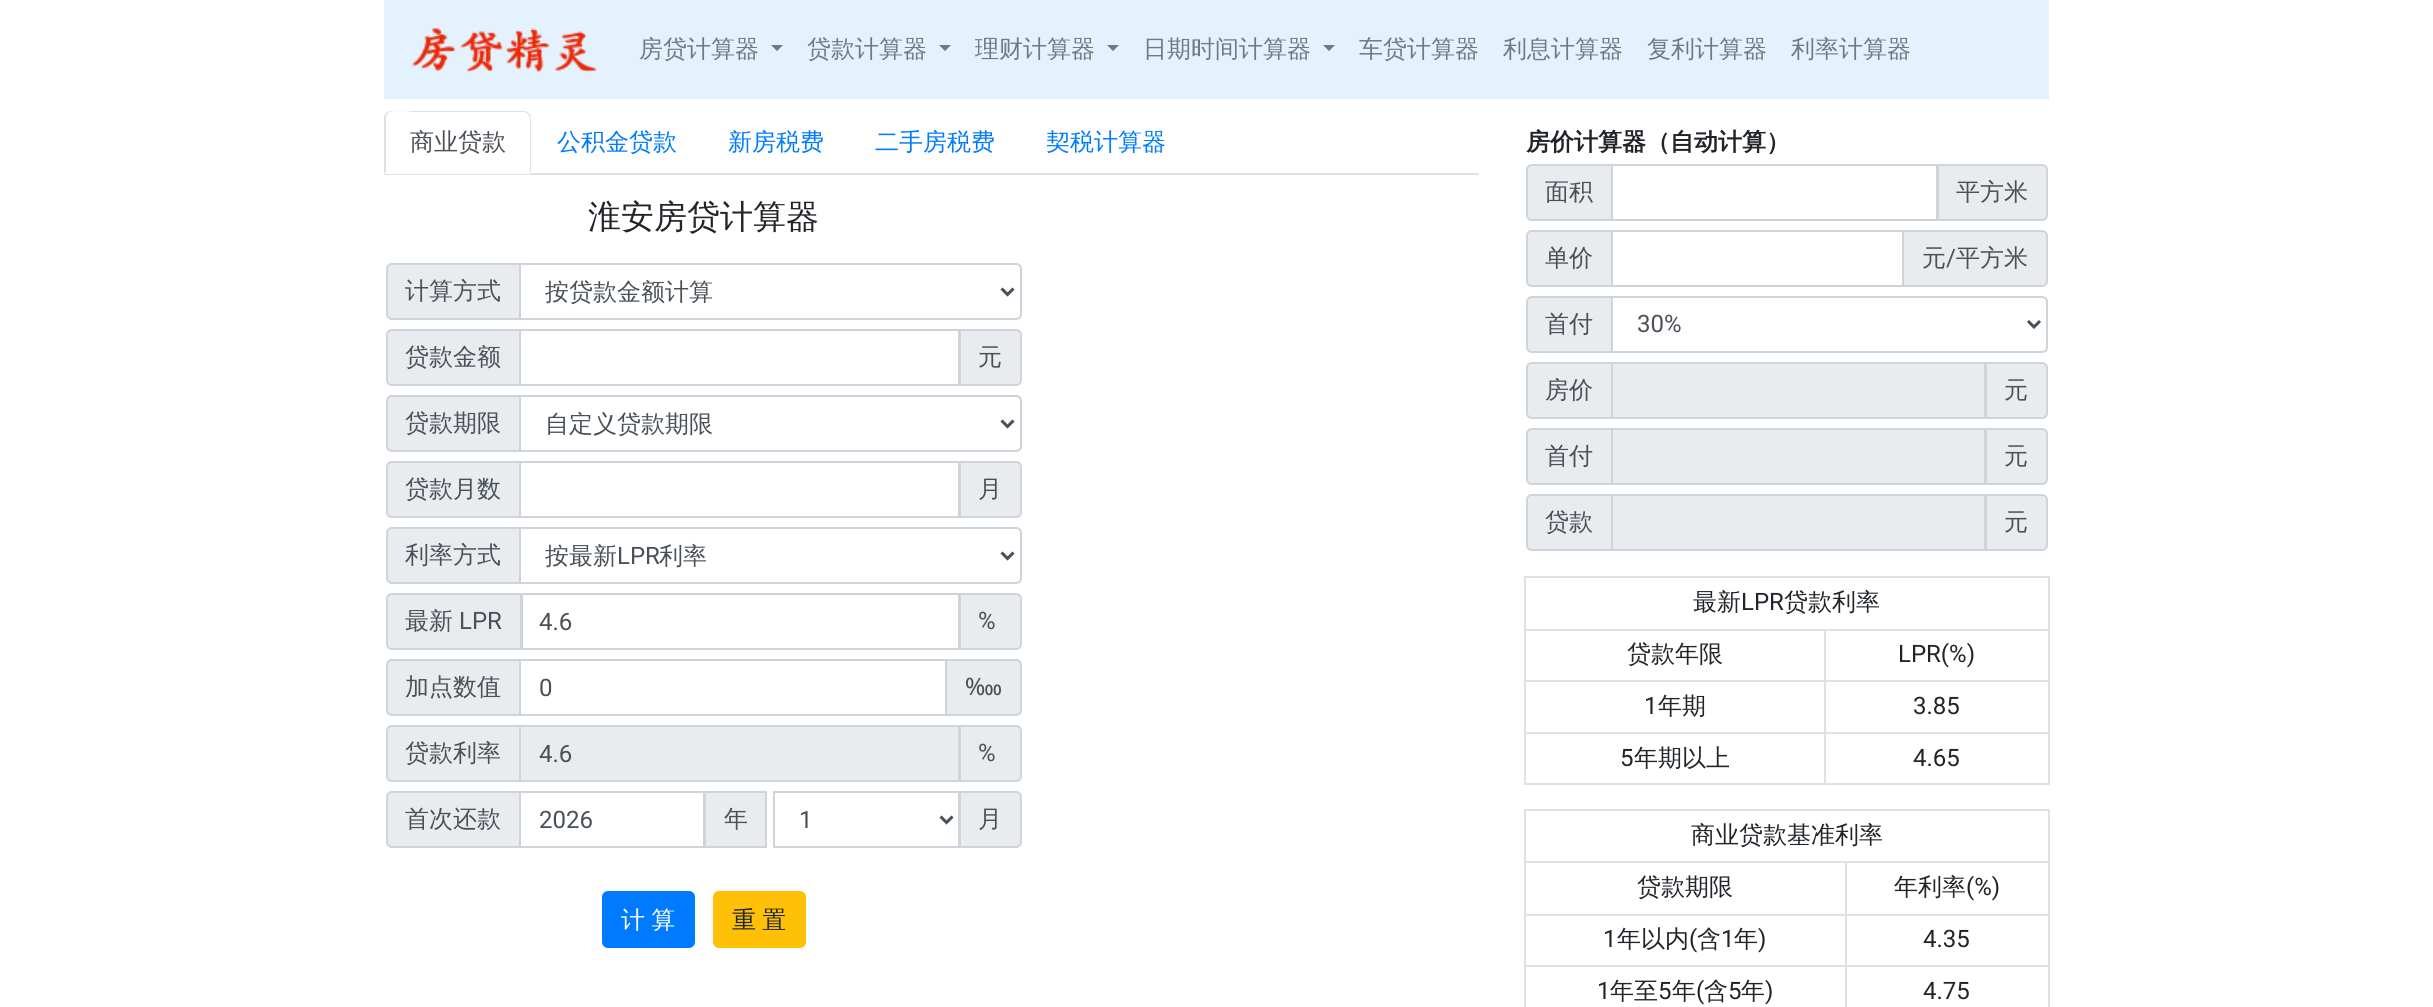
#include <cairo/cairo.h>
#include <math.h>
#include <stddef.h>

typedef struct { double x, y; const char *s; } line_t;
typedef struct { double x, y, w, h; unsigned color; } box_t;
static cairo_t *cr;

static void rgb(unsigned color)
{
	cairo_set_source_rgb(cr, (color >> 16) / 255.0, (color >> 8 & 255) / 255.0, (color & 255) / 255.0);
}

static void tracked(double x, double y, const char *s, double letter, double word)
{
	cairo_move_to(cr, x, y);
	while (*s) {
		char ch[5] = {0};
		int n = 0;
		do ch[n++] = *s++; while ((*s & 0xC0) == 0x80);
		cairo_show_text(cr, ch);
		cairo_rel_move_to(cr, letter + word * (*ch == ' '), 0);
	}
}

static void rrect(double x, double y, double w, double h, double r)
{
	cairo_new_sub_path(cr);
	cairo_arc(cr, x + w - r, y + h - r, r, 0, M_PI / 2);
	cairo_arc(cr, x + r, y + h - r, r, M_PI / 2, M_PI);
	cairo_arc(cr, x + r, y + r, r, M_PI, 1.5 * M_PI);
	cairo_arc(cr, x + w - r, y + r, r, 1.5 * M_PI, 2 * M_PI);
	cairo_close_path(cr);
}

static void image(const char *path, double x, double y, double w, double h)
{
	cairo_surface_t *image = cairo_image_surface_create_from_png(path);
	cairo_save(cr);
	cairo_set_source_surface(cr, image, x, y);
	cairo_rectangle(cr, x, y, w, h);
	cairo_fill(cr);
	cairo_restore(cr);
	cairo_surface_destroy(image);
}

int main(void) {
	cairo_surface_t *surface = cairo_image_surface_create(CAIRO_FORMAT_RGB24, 2433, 1007);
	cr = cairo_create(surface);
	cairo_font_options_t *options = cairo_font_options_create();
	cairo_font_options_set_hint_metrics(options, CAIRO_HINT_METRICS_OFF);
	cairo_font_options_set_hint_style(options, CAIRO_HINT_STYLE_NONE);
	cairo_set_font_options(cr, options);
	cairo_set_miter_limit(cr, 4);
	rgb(0xffffff);
	cairo_paint(cr);
	rgb(0xe3f2fd);
	cairo_rectangle(cr, 384, 0, 1665, 99);
	cairo_fill(cr);
	image("img/1.png", 412, 28, 186, 45);
	rgb(0x72797f);
	cairo_new_path(cr);
	cairo_move_to(cr, 771, 45);
	cairo_line_to(cr, 783, 45);
	cairo_line_to(cr, 777, 51);
	cairo_close_path(cr);
	cairo_fill(cr);
	cairo_new_path(cr);
	cairo_move_to(cr, 939, 45);
	cairo_line_to(cr, 951, 45);
	cairo_line_to(cr, 945, 51);
	cairo_close_path(cr);
	cairo_fill(cr);
	cairo_new_path(cr);
	cairo_move_to(cr, 1107, 45);
	cairo_line_to(cr, 1119, 45);
	cairo_line_to(cr, 1113, 51);
	cairo_close_path(cr);
	cairo_fill(cr);
	cairo_new_path(cr);
	cairo_move_to(cr, 1323, 45);
	cairo_line_to(cr, 1335, 45);
	cairo_line_to(cr, 1329, 51);
	cairo_close_path(cr);
	cairo_fill(cr);
	rgb(0xdee2e6);
	cairo_rectangle(cr, 384, 173, 1095, 2);
	cairo_fill(cr);
	rgb(0xffffff);
	cairo_new_path(cr);
	cairo_move_to(cr, 390, 111);
	cairo_line_to(cr, 525, 111);
	cairo_curve_to(cr, 528.5, 111, 531, 113.5, 531, 117);
	cairo_line_to(cr, 531, 174);
	cairo_line_to(cr, 384, 174);
	cairo_line_to(cr, 384, 117);
	cairo_curve_to(cr, 384, 113.5, 386.5, 111, 390, 111);
	cairo_close_path(cr);
	cairo_fill(cr);
	rgb(0xdee2e6);
	cairo_new_path(cr);
	cairo_move_to(cr, 390, 111);
	cairo_curve_to(cr, 388, 111, 387, 112, 386, 113);
	cairo_line_to(cr, 387, 114);
	cairo_curve_to(cr, 391, 108, 412, 112, 412, 112);
	cairo_line_to(cr, 525, 112);
	cairo_line_to(cr, 528, 114);
	cairo_line_to(cr, 529, 113);
	cairo_curve_to(cr, 528, 112, 526, 111, 525, 111);
	cairo_close_path(cr);
	cairo_fill(cr);
	cairo_new_path(cr);
	cairo_move_to(cr, 531, 174);
	cairo_line_to(cr, 531, 117);
	cairo_curve_to(cr, 531, 116, 530, 114, 529, 113);
	cairo_line_to(cr, 528, 114);
	cairo_line_to(cr, 530, 117);
	cairo_line_to(cr, 530, 172);
	cairo_line_to(cr, 529, 172);
	cairo_close_path(cr);
	cairo_fill(cr);
	rgb(0xffffff);
	cairo_new_path(cr);
	cairo_move_to(cr, 531, 174);
	cairo_line_to(cr, 529, 172);
	cairo_line_to(cr, 386, 172);
	cairo_line_to(cr, 384, 174);
	cairo_close_path(cr);
	cairo_fill(cr);
	rgb(0xdee2e6);
	cairo_new_path(cr);
	cairo_move_to(cr, 384, 174);
	cairo_line_to(cr, 386, 172);
	cairo_line_to(cr, 386, 117);
	cairo_line_to(cr, 387, 114);
	cairo_line_to(cr, 386, 113);
	cairo_curve_to(cr, 385, 114, 384, 116, 384, 117);
	cairo_close_path(cr);
	cairo_fill(cr);
	rgb(0xe9ecef);
	cairo_new_path(cr);
	cairo_move_to(cr, 392, 264);
	cairo_line_to(cr, 520, 264);
	cairo_line_to(cr, 520, 319);
	cairo_line_to(cr, 392, 319);
	cairo_curve_to(cr, 389, 319, 387, 317, 387, 314);
	cairo_line_to(cr, 387, 269);
	cairo_curve_to(cr, 387, 266, 389, 264, 392, 264);
	cairo_close_path(cr);
	cairo_fill_preserve(cr);
	rgb(0xced4da);
	cairo_stroke(cr);
	cairo_new_path(cr);
	cairo_move_to(cr, 520, 264);
	cairo_line_to(cr, 1016, 264);
	cairo_curve_to(cr, 1019, 264, 1021, 266, 1021, 269);
	cairo_line_to(cr, 1021, 314);
	cairo_curve_to(cr, 1021, 317, 1019, 319, 1016, 319);
	cairo_line_to(cr, 520, 319);
	cairo_close_path(cr);
	cairo_stroke(cr);
	cairo_new_path(cr);
	cairo_move_to(cr, 1001.5, 288.5);
	cairo_line_to(cr, 1007.5, 294.5);
	cairo_line_to(cr, 1013.5, 288.5);
	rgb(0x495057);
	cairo_set_line_width(cr, 3);
	cairo_stroke(cr);
	rgb(0xe9ecef);
	cairo_new_path(cr);
	cairo_move_to(cr, 392, 330);
	cairo_line_to(cr, 520, 330);
	cairo_line_to(cr, 520, 385);
	cairo_line_to(cr, 392, 385);
	cairo_curve_to(cr, 389, 385, 387, 383, 387, 380);
	cairo_line_to(cr, 387, 335);
	cairo_curve_to(cr, 387, 332, 389, 330, 392, 330);
	cairo_close_path(cr);
	cairo_fill_preserve(cr);
	rgb(0xced4da);
	cairo_set_line_width(cr, 2);
	cairo_stroke(cr);
	rgb(0xe9ecef);
	cairo_new_path(cr);
	cairo_move_to(cr, 960, 330);
	cairo_line_to(cr, 1016, 330);
	cairo_curve_to(cr, 1019, 330, 1021, 332, 1021, 335);
	cairo_line_to(cr, 1021, 380);
	cairo_curve_to(cr, 1021, 383, 1019, 385, 1016, 385);
	cairo_line_to(cr, 960, 385);
	cairo_close_path(cr);
	cairo_fill_preserve(cr);
	rgb(0xced4da);
	cairo_stroke(cr);
	cairo_rectangle(cr, 520, 330, 439, 55);
	cairo_stroke(cr);
	rgb(0xe9ecef);
	cairo_new_path(cr);
	cairo_move_to(cr, 392, 396);
	cairo_line_to(cr, 520, 396);
	cairo_line_to(cr, 520, 451);
	cairo_line_to(cr, 392, 451);
	cairo_curve_to(cr, 389, 451, 387, 449, 387, 446);
	cairo_line_to(cr, 387, 401);
	cairo_curve_to(cr, 387, 398, 389, 396, 392, 396);
	cairo_close_path(cr);
	cairo_fill_preserve(cr);
	rgb(0xced4da);
	cairo_stroke(cr);
	cairo_new_path(cr);
	cairo_move_to(cr, 520, 396);
	cairo_line_to(cr, 1016, 396);
	cairo_curve_to(cr, 1019, 396, 1021, 398, 1021, 401);
	cairo_line_to(cr, 1021, 446);
	cairo_curve_to(cr, 1021, 449, 1019, 451, 1016, 451);
	cairo_line_to(cr, 520, 451);
	cairo_close_path(cr);
	cairo_stroke(cr);
	cairo_new_path(cr);
	cairo_move_to(cr, 1001.5, 420.5);
	cairo_line_to(cr, 1007.5, 426.5);
	cairo_line_to(cr, 1013.5, 420.5);
	rgb(0x495057);
	cairo_set_line_width(cr, 3);
	cairo_stroke(cr);
	rgb(0xe9ecef);
	cairo_new_path(cr);
	cairo_move_to(cr, 392, 462);
	cairo_line_to(cr, 520, 462);
	cairo_line_to(cr, 520, 517);
	cairo_line_to(cr, 392, 517);
	cairo_curve_to(cr, 389, 517, 387, 515, 387, 512);
	cairo_line_to(cr, 387, 467);
	cairo_curve_to(cr, 387, 464, 389, 462, 392, 462);
	cairo_close_path(cr);
	cairo_fill_preserve(cr);
	rgb(0xced4da);
	cairo_set_line_width(cr, 2);
	cairo_stroke(cr);
	rgb(0xe9ecef);
	cairo_new_path(cr);
	cairo_move_to(cr, 960, 462);
	cairo_line_to(cr, 1016, 462);
	cairo_curve_to(cr, 1019, 462, 1021, 464, 1021, 467);
	cairo_line_to(cr, 1021, 512);
	cairo_curve_to(cr, 1021, 515, 1019, 517, 1016, 517);
	cairo_line_to(cr, 960, 517);
	cairo_close_path(cr);
	cairo_fill_preserve(cr);
	rgb(0xced4da);
	cairo_stroke(cr);
	cairo_rectangle(cr, 520, 462, 439, 55);
	cairo_stroke(cr);
	rgb(0xe9ecef);
	cairo_new_path(cr);
	cairo_move_to(cr, 392, 528);
	cairo_line_to(cr, 520, 528);
	cairo_line_to(cr, 520, 583);
	cairo_line_to(cr, 392, 583);
	cairo_curve_to(cr, 389, 583, 387, 581, 387, 578);
	cairo_line_to(cr, 387, 533);
	cairo_curve_to(cr, 387, 530, 389, 528, 392, 528);
	cairo_close_path(cr);
	cairo_fill_preserve(cr);
	rgb(0xced4da);
	cairo_stroke(cr);
	cairo_new_path(cr);
	cairo_move_to(cr, 520, 528);
	cairo_line_to(cr, 1016, 528);
	cairo_curve_to(cr, 1019, 528, 1021, 530, 1021, 533);
	cairo_line_to(cr, 1021, 578);
	cairo_curve_to(cr, 1021, 581, 1019, 583, 1016, 583);
	cairo_line_to(cr, 520, 583);
	cairo_close_path(cr);
	cairo_stroke(cr);
	cairo_new_path(cr);
	cairo_move_to(cr, 1001.5, 552.5);
	cairo_line_to(cr, 1007.5, 558.5);
	cairo_line_to(cr, 1013.5, 552.5);
	rgb(0x495057);
	cairo_set_line_width(cr, 3);
	cairo_stroke(cr);
	rgb(0xe9ecef);
	cairo_new_path(cr);
	cairo_move_to(cr, 392, 594);
	cairo_line_to(cr, 521, 594);
	cairo_line_to(cr, 521, 649);
	cairo_line_to(cr, 392, 649);
	cairo_curve_to(cr, 389, 649, 387, 647, 387, 644);
	cairo_line_to(cr, 387, 599);
	cairo_curve_to(cr, 387, 596, 389, 594, 392, 594);
	cairo_close_path(cr);
	cairo_fill_preserve(cr);
	rgb(0xced4da);
	cairo_set_line_width(cr, 2);
	cairo_stroke(cr);
	rgb(0xe9ecef);
	cairo_new_path(cr);
	cairo_move_to(cr, 960, 594);
	cairo_line_to(cr, 1016, 594);
	cairo_curve_to(cr, 1019, 594, 1021, 596, 1021, 599);
	cairo_line_to(cr, 1021, 644);
	cairo_curve_to(cr, 1021, 647, 1019, 649, 1016, 649);
	cairo_line_to(cr, 960, 649);
	cairo_close_path(cr);
	cairo_fill_preserve(cr);
	rgb(0xced4da);
	cairo_stroke(cr);
	cairo_rectangle(cr, 522, 594, 437, 55);
	cairo_stroke(cr);
	rgb(0xe9ecef);
	cairo_new_path(cr);
	cairo_move_to(cr, 392, 660);
	cairo_line_to(cr, 520, 660);
	cairo_line_to(cr, 520, 715);
	cairo_line_to(cr, 392, 715);
	cairo_curve_to(cr, 389, 715, 387, 713, 387, 710);
	cairo_line_to(cr, 387, 665);
	cairo_curve_to(cr, 387, 662, 389, 660, 392, 660);
	cairo_close_path(cr);
	cairo_fill_preserve(cr);
	rgb(0xced4da);
	cairo_stroke(cr);
	rgb(0xe9ecef);
	cairo_new_path(cr);
	cairo_move_to(cr, 946, 660);
	cairo_line_to(cr, 1016, 660);
	cairo_curve_to(cr, 1019, 660, 1021, 662, 1021, 665);
	cairo_line_to(cr, 1021, 710);
	cairo_curve_to(cr, 1021, 713, 1019, 715, 1016, 715);
	cairo_line_to(cr, 946, 715);
	cairo_close_path(cr);
	cairo_fill_preserve(cr);
	rgb(0xced4da);
	cairo_stroke(cr);
	cairo_rectangle(cr, 520, 660, 426, 55);
	cairo_stroke(cr);
	rgb(0xe9ecef);
	cairo_new_path(cr);
	cairo_move_to(cr, 392, 726);
	cairo_line_to(cr, 520, 726);
	cairo_line_to(cr, 520, 781);
	cairo_line_to(cr, 392, 781);
	cairo_curve_to(cr, 389, 781, 387, 779, 387, 776);
	cairo_line_to(cr, 387, 731);
	cairo_curve_to(cr, 387, 728, 389, 726, 392, 726);
	cairo_close_path(cr);
	cairo_fill_preserve(cr);
	rgb(0xced4da);
	cairo_stroke(cr);
	rgb(0xe9ecef);
	cairo_new_path(cr);
	cairo_move_to(cr, 960, 726);
	cairo_line_to(cr, 1016, 726);
	cairo_curve_to(cr, 1019, 726, 1021, 728, 1021, 731);
	cairo_line_to(cr, 1021, 776);
	cairo_curve_to(cr, 1021, 779, 1019, 781, 1016, 781);
	cairo_line_to(cr, 960, 781);
	cairo_close_path(cr);
	cairo_fill_preserve(cr);
	rgb(0xced4da);
	cairo_stroke(cr);
	rgb(0xe9ecef);
	cairo_rectangle(cr, 520, 726, 439, 55);
	cairo_fill_preserve(cr);
	rgb(0xced4da);
	cairo_stroke(cr);
	rgb(0xe9ecef);
	cairo_new_path(cr);
	cairo_move_to(cr, 392, 792);
	cairo_line_to(cr, 520, 792);
	cairo_line_to(cr, 520, 847);
	cairo_line_to(cr, 392, 847);
	cairo_curve_to(cr, 389, 847, 387, 845, 387, 842);
	cairo_line_to(cr, 387, 797);
	cairo_curve_to(cr, 387, 794, 389, 792, 392, 792);
	cairo_close_path(cr);
	cairo_fill_preserve(cr);
	rgb(0xced4da);
	cairo_stroke(cr);
	rgb(0xe9ecef);
	cairo_rectangle(cr, 705, 792, 61, 55);
	cairo_fill_preserve(cr);
	rgb(0xced4da);
	cairo_stroke(cr);
	cairo_rectangle(cr, 520, 792, 184, 55);
	cairo_stroke(cr);
	rgb(0xe9ecef);
	cairo_new_path(cr);
	cairo_move_to(cr, 960, 792);
	cairo_line_to(cr, 1016, 792);
	cairo_curve_to(cr, 1019, 792, 1021, 794, 1021, 797);
	cairo_line_to(cr, 1021, 842);
	cairo_curve_to(cr, 1021, 845, 1019, 847, 1016, 847);
	cairo_line_to(cr, 960, 847);
	cairo_close_path(cr);
	cairo_fill_preserve(cr);
	rgb(0xced4da);
	cairo_stroke(cr);
	cairo_rectangle(cr, 774, 792, 185, 55);
	cairo_stroke(cr);
	cairo_new_path(cr);
	cairo_move_to(cr, 940.5, 816.5);
	cairo_line_to(cr, 946.5, 822.5);
	cairo_line_to(cr, 952.5, 816.5);
	rgb(0x495057);
	cairo_set_line_width(cr, 3);
	cairo_stroke(cr);
	rgb(0x007bff);
	rrect(603, 892, 91, 55, 5);
	cairo_fill_preserve(cr);
	cairo_set_line_width(cr, 2);
	cairo_stroke(cr);
	rgb(0xffc107);
	rrect(714, 892, 91, 55, 5);
	cairo_fill_preserve(cr);
	cairo_stroke(cr);
	rgb(0xe9ecef);
	cairo_new_path(cr);
	cairo_move_to(cr, 1532, 165);
	cairo_line_to(cr, 1612, 165);
	cairo_line_to(cr, 1612, 220);
	cairo_line_to(cr, 1532, 220);
	cairo_curve_to(cr, 1529, 220, 1527, 218, 1527, 215);
	cairo_line_to(cr, 1527, 170);
	cairo_curve_to(cr, 1527, 167, 1529, 165, 1532, 165);
	cairo_close_path(cr);
	cairo_fill_preserve(cr);
	rgb(0xced4da);
	cairo_stroke(cr);
	rgb(0xe9ecef);
	cairo_new_path(cr);
	cairo_move_to(cr, 1938, 165);
	cairo_line_to(cr, 2042, 165);
	cairo_curve_to(cr, 2045, 165, 2047, 167, 2047, 170);
	cairo_line_to(cr, 2047, 215);
	cairo_curve_to(cr, 2047, 218, 2045, 220, 2042, 220);
	cairo_line_to(cr, 1938, 220);
	cairo_close_path(cr);
	cairo_fill_preserve(cr);
	rgb(0xced4da);
	cairo_stroke(cr);
	cairo_rectangle(cr, 1612, 165, 325, 55);
	cairo_stroke(cr);
	rgb(0xe9ecef);
	cairo_new_path(cr);
	cairo_move_to(cr, 1532, 231);
	cairo_line_to(cr, 1612, 231);
	cairo_line_to(cr, 1612, 286);
	cairo_line_to(cr, 1532, 286);
	cairo_curve_to(cr, 1529, 286, 1527, 284, 1527, 281);
	cairo_line_to(cr, 1527, 236);
	cairo_curve_to(cr, 1527, 233, 1529, 231, 1532, 231);
	cairo_close_path(cr);
	cairo_fill_preserve(cr);
	rgb(0xced4da);
	cairo_stroke(cr);
	rgb(0xe9ecef);
	cairo_new_path(cr);
	cairo_move_to(cr, 1903, 231);
	cairo_line_to(cr, 2042, 231);
	cairo_curve_to(cr, 2045, 231, 2047, 233, 2047, 236);
	cairo_line_to(cr, 2047, 281);
	cairo_curve_to(cr, 2047, 284, 2045, 286, 2042, 286);
	cairo_line_to(cr, 1903, 286);
	cairo_close_path(cr);
	cairo_fill_preserve(cr);
	rgb(0xced4da);
	cairo_stroke(cr);
	cairo_rectangle(cr, 1612, 231, 291, 55);
	cairo_stroke(cr);
	rgb(0xe9ecef);
	cairo_new_path(cr);
	cairo_move_to(cr, 1532, 297);
	cairo_line_to(cr, 1612, 297);
	cairo_line_to(cr, 1612, 352);
	cairo_line_to(cr, 1532, 352);
	cairo_curve_to(cr, 1529, 352, 1527, 350, 1527, 347);
	cairo_line_to(cr, 1527, 302);
	cairo_curve_to(cr, 1527, 299, 1529, 297, 1532, 297);
	cairo_close_path(cr);
	cairo_fill_preserve(cr);
	rgb(0xced4da);
	cairo_stroke(cr);
	cairo_new_path(cr);
	cairo_move_to(cr, 1612, 297);
	cairo_line_to(cr, 2042, 297);
	cairo_curve_to(cr, 2045, 297, 2047, 299, 2047, 302);
	cairo_line_to(cr, 2047, 347);
	cairo_curve_to(cr, 2047, 350, 2045, 352, 2042, 352);
	cairo_line_to(cr, 1612, 352);
	cairo_close_path(cr);
	cairo_stroke(cr);
	cairo_new_path(cr);
	cairo_move_to(cr, 2028, 321);
	cairo_line_to(cr, 2034, 327);
	cairo_line_to(cr, 2040, 321);
	rgb(0x495057);
	cairo_set_line_width(cr, 3);
	cairo_stroke(cr);
	rgb(0xe9ecef);
	cairo_new_path(cr);
	cairo_move_to(cr, 1532, 363);
	cairo_line_to(cr, 1612, 363);
	cairo_line_to(cr, 1612, 418);
	cairo_line_to(cr, 1532, 418);
	cairo_curve_to(cr, 1529, 418, 1527, 416, 1527, 413);
	cairo_line_to(cr, 1527, 368);
	cairo_curve_to(cr, 1527, 365, 1529, 363, 1532, 363);
	cairo_close_path(cr);
	cairo_fill_preserve(cr);
	rgb(0xced4da);
	cairo_set_line_width(cr, 2);
	cairo_stroke(cr);
	rgb(0xe9ecef);
	cairo_new_path(cr);
	cairo_move_to(cr, 1986, 363);
	cairo_line_to(cr, 2042, 363);
	cairo_curve_to(cr, 2045, 363, 2047, 365, 2047, 368);
	cairo_line_to(cr, 2047, 413);
	cairo_curve_to(cr, 2047, 416, 2045, 418, 2042, 418);
	cairo_line_to(cr, 1986, 418);
	cairo_close_path(cr);
	cairo_fill_preserve(cr);
	rgb(0xced4da);
	cairo_stroke(cr);
	rgb(0xe9ecef);
	cairo_rectangle(cr, 1612, 363, 373, 55);
	cairo_fill_preserve(cr);
	rgb(0xced4da);
	cairo_stroke(cr);
	rgb(0xe9ecef);
	cairo_new_path(cr);
	cairo_move_to(cr, 1532, 429);
	cairo_line_to(cr, 1612, 429);
	cairo_line_to(cr, 1612, 484);
	cairo_line_to(cr, 1532, 484);
	cairo_curve_to(cr, 1529, 484, 1527, 482, 1527, 479);
	cairo_line_to(cr, 1527, 434);
	cairo_curve_to(cr, 1527, 431, 1529, 429, 1532, 429);
	cairo_close_path(cr);
	cairo_fill_preserve(cr);
	rgb(0xced4da);
	cairo_stroke(cr);
	rgb(0xe9ecef);
	cairo_new_path(cr);
	cairo_move_to(cr, 1986, 429);
	cairo_line_to(cr, 2042, 429);
	cairo_curve_to(cr, 2045, 429, 2047, 431, 2047, 434);
	cairo_line_to(cr, 2047, 479);
	cairo_curve_to(cr, 2047, 482, 2045, 484, 2042, 484);
	cairo_line_to(cr, 1986, 484);
	cairo_close_path(cr);
	cairo_fill_preserve(cr);
	rgb(0xced4da);
	cairo_stroke(cr);
	rgb(0xe9ecef);
	cairo_rectangle(cr, 1612, 429, 373, 55);
	cairo_fill_preserve(cr);
	rgb(0xced4da);
	cairo_stroke(cr);
	rgb(0xe9ecef);
	cairo_new_path(cr);
	cairo_move_to(cr, 1532, 495);
	cairo_line_to(cr, 1612, 495);
	cairo_line_to(cr, 1612, 550);
	cairo_line_to(cr, 1532, 550);
	cairo_curve_to(cr, 1529, 550, 1527, 548, 1527, 545);
	cairo_line_to(cr, 1527, 500);
	cairo_curve_to(cr, 1527, 497, 1529, 495, 1532, 495);
	cairo_close_path(cr);
	cairo_fill_preserve(cr);
	rgb(0xced4da);
	cairo_stroke(cr);
	rgb(0xe9ecef);
	cairo_new_path(cr);
	cairo_move_to(cr, 1986, 495);
	cairo_line_to(cr, 2042, 495);
	cairo_curve_to(cr, 2045, 495, 2047, 497, 2047, 500);
	cairo_line_to(cr, 2047, 545);
	cairo_curve_to(cr, 2047, 548, 2045, 550, 2042, 550);
	cairo_line_to(cr, 1986, 550);
	cairo_close_path(cr);
	cairo_fill_preserve(cr);
	rgb(0xced4da);
	cairo_stroke(cr);
	rgb(0xe9ecef);
	cairo_rectangle(cr, 1612, 495, 373, 55);
	cairo_fill_preserve(cr);
	rgb(0xced4da);
	cairo_stroke(cr);
	{
		static const box_t items[] = {
			{1524, 576, 525, 2, 0xdee2e6},
			{2048, 576, 2, 209, 0xdee2e6},
			{1524, 783, 525, 2, 0xdee2e6},
			{1524, 576, 2, 209, 0xdee2e6},
			{1824, 629, 225, 2, 0xdee2e6},
			{1824, 680, 225, 2, 0xdee2e6},
			{1824, 732, 225, 2, 0xdee2e6},
			{1824, 732, 2, 53, 0xdee2e6},
			{1524, 732, 302, 2, 0xdee2e6},
			{1824, 680, 2, 54, 0xdee2e6},
			{1524, 680, 302, 2, 0xdee2e6},
			{1824, 629, 2, 52, 0xdee2e6},
			{1524, 629, 302, 2, 0xdee2e6},
			{1524, 809, 525, 2, 0xdee2e6},
			{2048, 809, 2, 198, 0xdee2e6},
			{1524, 809, 2, 198, 0xdee2e6},
			{1845, 861, 204, 2, 0xdee2e6},
			{1845, 914, 204, 2, 0xdee2e6},
			{1845, 965, 204, 2, 0xdee2e6},
			{1845, 965, 2, 42, 0xdee2e6},
			{1524, 965, 323, 2, 0xdee2e6},
			{1845, 914, 2, 52, 0xdee2e6},
			{1524, 914, 323, 2, 0xdee2e6},
			{1845, 861, 2, 54, 0xdee2e6},
			{1524, 861, 323, 2, 0xdee2e6},
		};
		for (size_t i = 0; i < sizeof items / sizeof *items; i++) {
			rgb(items[i].color);
			cairo_rectangle(cr, items[i].x, items[i].y, items[i].w, items[i].h);
			cairo_fill(cr);
		}
	}
	cairo_select_font_face(cr, "WenQuanYi Zen Hei Medium", CAIRO_FONT_SLANT_NORMAL, CAIRO_FONT_WEIGHT_NORMAL);
	cairo_set_font_size(cr, 24);
	rgb(0x72797f);
	{
		static const line_t items[] = {
			{639, 57, "房贷计算器"},
			{807, 57, "贷款计算器"},
			{975, 57, "理财计算器"},
			{1143, 57, "日期时间计算器"},
			{1359, 57, "车贷计算器"},
			{1503, 57, "利息计算器"},
			{1647, 57, "复利计算器"},
			{1791, 57, "利率计算器"},
		};
		for (size_t i = 0; i < sizeof items / sizeof *items; i++) {
			cairo_move_to(cr, items[i].x, items[i].y);
			cairo_show_text(cr, items[i].s);
		}
	}
	rgb(0x495057);
	cairo_move_to(cr, 410, 150);
	cairo_show_text(cr, "商业贷款");
	rgb(0x007bff);
	{
		static const line_t items[] = {
			{557, 150, "公积金贷款"},
			{728, 150, "新房税费"},
			{875, 150, "二手房税费"},
			{1046, 150, "契税计算器"},
		};
		for (size_t i = 0; i < sizeof items / sizeof *items; i++) {
			cairo_move_to(cr, items[i].x, items[i].y);
			cairo_show_text(cr, items[i].s);
		}
	}
	cairo_set_font_size(cr, 33);
	rgb(0x212529);
	cairo_move_to(cr, 588, 228);
	cairo_show_text(cr, "淮安房贷计算器");
	cairo_set_font_size(cr, 24);
	rgb(0x495057);
	{
		static const line_t items[] = {
			{405, 299, "计算方式"},
			{545, 300, "按贷款金额计算"},
			{405, 365, "贷款金额"},
			{978, 365, "元"},
			{405, 431, "贷款期限"},
			{545, 432, "自定义贷款期限"},
			{405, 497, "贷款月数"},
			{978, 497, "月"},
			{405, 563, "利率方式"},
			{545, 564, "按最新"},
		};
		for (size_t i = 0; i < sizeof items / sizeof *items; i++) {
			cairo_move_to(cr, items[i].x, items[i].y);
			cairo_show_text(cr, items[i].s);
		}
	}
	cairo_select_font_face(cr, "Roboto", CAIRO_FONT_SLANT_NORMAL, CAIRO_FONT_WEIGHT_NORMAL);
	cairo_move_to(cr, 617, 564);
	cairo_show_text(cr, "LPR");
	cairo_select_font_face(cr, "WenQuanYi Zen Hei Medium", CAIRO_FONT_SLANT_NORMAL, CAIRO_FONT_WEIGHT_NORMAL);
	cairo_move_to(cr, 659, 564);
	cairo_show_text(cr, "利率");
	cairo_move_to(cr, 405, 629);
	cairo_show_text(cr, "最新");
	cairo_select_font_face(cr, "Roboto", CAIRO_FONT_SLANT_NORMAL, CAIRO_FONT_WEIGHT_NORMAL);
	{
		static const line_t items[] = {
			{459, 629, "LPR"},
			{539, 630, "4.6"},
			{978, 629, "%"},
		};
		for (size_t i = 0; i < sizeof items / sizeof *items; i++) {
			cairo_move_to(cr, items[i].x, items[i].y);
			cairo_show_text(cr, items[i].s);
		}
	}
	cairo_select_font_face(cr, "WenQuanYi Zen Hei Medium", CAIRO_FONT_SLANT_NORMAL, CAIRO_FONT_WEIGHT_NORMAL);
	cairo_move_to(cr, 405, 695);
	cairo_show_text(cr, "加点数值");
	cairo_select_font_face(cr, "Roboto", CAIRO_FONT_SLANT_NORMAL, CAIRO_FONT_WEIGHT_NORMAL);
	cairo_move_to(cr, 539, 696);
	cairo_show_text(cr, "0");
	cairo_select_font_face(cr, "Noto Sans", CAIRO_FONT_SLANT_NORMAL, CAIRO_FONT_WEIGHT_NORMAL);
	cairo_move_to(cr, 965, 695);
	cairo_show_text(cr, "‱");
	cairo_select_font_face(cr, "WenQuanYi Zen Hei Medium", CAIRO_FONT_SLANT_NORMAL, CAIRO_FONT_WEIGHT_NORMAL);
	cairo_move_to(cr, 405, 761);
	cairo_show_text(cr, "贷款利率");
	cairo_select_font_face(cr, "Roboto", CAIRO_FONT_SLANT_NORMAL, CAIRO_FONT_WEIGHT_NORMAL);
	cairo_move_to(cr, 539, 762);
	cairo_show_text(cr, "4.6");
	cairo_move_to(cr, 978, 761);
	cairo_show_text(cr, "%");
	cairo_select_font_face(cr, "WenQuanYi Zen Hei Medium", CAIRO_FONT_SLANT_NORMAL, CAIRO_FONT_WEIGHT_NORMAL);
	cairo_move_to(cr, 405, 827);
	cairo_show_text(cr, "首次还款");
	cairo_select_font_face(cr, "Roboto", CAIRO_FONT_SLANT_NORMAL, CAIRO_FONT_WEIGHT_NORMAL);
	cairo_move_to(cr, 539, 828);
	cairo_show_text(cr, "2026");
	cairo_select_font_face(cr, "WenQuanYi Zen Hei Medium", CAIRO_FONT_SLANT_NORMAL, CAIRO_FONT_WEIGHT_NORMAL);
	cairo_move_to(cr, 724, 827);
	cairo_show_text(cr, "年");
	cairo_select_font_face(cr, "Roboto", CAIRO_FONT_SLANT_NORMAL, CAIRO_FONT_WEIGHT_NORMAL);
	cairo_move_to(cr, 799, 828);
	cairo_show_text(cr, "1");
	cairo_select_font_face(cr, "WenQuanYi Zen Hei Medium", CAIRO_FONT_SLANT_NORMAL, CAIRO_FONT_WEIGHT_NORMAL);
	cairo_move_to(cr, 978, 827);
	cairo_show_text(cr, "月");
	rgb(0xffffff);
	tracked(621, 928, "计 算", 0, -1);
	rgb(0x212529);
	tracked(732, 928, "重 置", 0, -1);
	cairo_select_font_face(cr, "WenQuanYi Zen Hei", CAIRO_FONT_SLANT_NORMAL, CAIRO_FONT_WEIGHT_BOLD);
	cairo_move_to(cr, 1526, 150);
	cairo_show_text(cr, "房价计算器（自动计算）");
	cairo_select_font_face(cr, "WenQuanYi Zen Hei Medium", CAIRO_FONT_SLANT_NORMAL, CAIRO_FONT_WEIGHT_NORMAL);
	rgb(0x495057);
	{
		static const line_t items[] = {
			{1545, 200, "面积"},
			{1956, 200, "平方米"},
			{1545, 266, "单价"},
			{1922, 266, "元"},
		};
		for (size_t i = 0; i < sizeof items / sizeof *items; i++) {
			cairo_move_to(cr, items[i].x, items[i].y);
			cairo_show_text(cr, items[i].s);
		}
	}
	cairo_select_font_face(cr, "Roboto", CAIRO_FONT_SLANT_NORMAL, CAIRO_FONT_WEIGHT_NORMAL);
	cairo_move_to(cr, 1946, 266);
	cairo_show_text(cr, "/");
	cairo_select_font_face(cr, "WenQuanYi Zen Hei Medium", CAIRO_FONT_SLANT_NORMAL, CAIRO_FONT_WEIGHT_NORMAL);
	cairo_move_to(cr, 1956, 266);
	cairo_show_text(cr, "平方米");
	cairo_move_to(cr, 1545, 332);
	cairo_show_text(cr, "首付");
	cairo_select_font_face(cr, "Roboto", CAIRO_FONT_SLANT_NORMAL, CAIRO_FONT_WEIGHT_NORMAL);
	cairo_move_to(cr, 1637, 332);
	cairo_show_text(cr, "30%");
	cairo_select_font_face(cr, "WenQuanYi Zen Hei Medium", CAIRO_FONT_SLANT_NORMAL, CAIRO_FONT_WEIGHT_NORMAL);
	{
		static const line_t items[] = {
			{1545, 398, "房价"},
			{2004, 398, "元"},
			{1545, 464, "首付"},
			{2004, 464, "元"},
			{1545, 530, "贷款"},
			{2004, 530, "元"},
		};
		for (size_t i = 0; i < sizeof items / sizeof *items; i++) {
			cairo_move_to(cr, items[i].x, items[i].y);
			cairo_show_text(cr, items[i].s);
		}
	}
	rgb(0x212529);
	cairo_move_to(cr, 1693, 610);
	cairo_show_text(cr, "最新");
	cairo_select_font_face(cr, "Roboto", CAIRO_FONT_SLANT_NORMAL, CAIRO_FONT_WEIGHT_NORMAL);
	cairo_move_to(cr, 1741, 610);
	cairo_show_text(cr, "LPR");
	cairo_select_font_face(cr, "WenQuanYi Zen Hei Medium", CAIRO_FONT_SLANT_NORMAL, CAIRO_FONT_WEIGHT_NORMAL);
	cairo_move_to(cr, 1784, 610);
	cairo_show_text(cr, "贷款利率");
	cairo_move_to(cr, 1627, 662);
	cairo_show_text(cr, "贷款年限");
	cairo_select_font_face(cr, "Roboto", CAIRO_FONT_SLANT_NORMAL, CAIRO_FONT_WEIGHT_NORMAL);
	cairo_move_to(cr, 1898, 662);
	cairo_show_text(cr, "LPR(%)");
	cairo_move_to(cr, 1644, 714);
	cairo_show_text(cr, "1");
	cairo_select_font_face(cr, "WenQuanYi Zen Hei Medium", CAIRO_FONT_SLANT_NORMAL, CAIRO_FONT_WEIGHT_NORMAL);
	cairo_move_to(cr, 1658, 714);
	cairo_show_text(cr, "年期");
	cairo_select_font_face(cr, "Roboto", CAIRO_FONT_SLANT_NORMAL, CAIRO_FONT_WEIGHT_NORMAL);
	cairo_move_to(cr, 1913, 714);
	cairo_show_text(cr, "3.85");
	cairo_move_to(cr, 1620, 766);
	cairo_show_text(cr, "5");
	cairo_select_font_face(cr, "WenQuanYi Zen Hei Medium", CAIRO_FONT_SLANT_NORMAL, CAIRO_FONT_WEIGHT_NORMAL);
	cairo_move_to(cr, 1634, 766);
	cairo_show_text(cr, "年期以上");
	cairo_select_font_face(cr, "Roboto", CAIRO_FONT_SLANT_NORMAL, CAIRO_FONT_WEIGHT_NORMAL);
	cairo_move_to(cr, 1913, 766);
	cairo_show_text(cr, "4.65");
	cairo_select_font_face(cr, "WenQuanYi Zen Hei Medium", CAIRO_FONT_SLANT_NORMAL, CAIRO_FONT_WEIGHT_NORMAL);
	{
		static const line_t items[] = {
			{1691, 843, "商业贷款基准利率"},
			{1637, 895, "贷款期限"},
			{1894, 895, "年利率"},
		};
		for (size_t i = 0; i < sizeof items / sizeof *items; i++) {
			cairo_move_to(cr, items[i].x, items[i].y);
			cairo_show_text(cr, items[i].s);
		}
	}
	cairo_select_font_face(cr, "Roboto", CAIRO_FONT_SLANT_NORMAL, CAIRO_FONT_WEIGHT_NORMAL);
	cairo_move_to(cr, 1966, 895);
	cairo_show_text(cr, "(%)");
	cairo_move_to(cr, 1603, 947);
	cairo_show_text(cr, "1");
	cairo_select_font_face(cr, "WenQuanYi Zen Hei Medium", CAIRO_FONT_SLANT_NORMAL, CAIRO_FONT_WEIGHT_NORMAL);
	cairo_move_to(cr, 1617, 947);
	cairo_show_text(cr, "年以内");
	cairo_select_font_face(cr, "Roboto", CAIRO_FONT_SLANT_NORMAL, CAIRO_FONT_WEIGHT_NORMAL);
	cairo_move_to(cr, 1689, 947);
	cairo_show_text(cr, "(");
	cairo_select_font_face(cr, "WenQuanYi Zen Hei Medium", CAIRO_FONT_SLANT_NORMAL, CAIRO_FONT_WEIGHT_NORMAL);
	cairo_move_to(cr, 1697, 947);
	cairo_show_text(cr, "含");
	cairo_select_font_face(cr, "Roboto", CAIRO_FONT_SLANT_NORMAL, CAIRO_FONT_WEIGHT_NORMAL);
	cairo_move_to(cr, 1721, 947);
	cairo_show_text(cr, "1");
	cairo_select_font_face(cr, "WenQuanYi Zen Hei Medium", CAIRO_FONT_SLANT_NORMAL, CAIRO_FONT_WEIGHT_NORMAL);
	cairo_move_to(cr, 1734, 947);
	cairo_show_text(cr, "年");
	cairo_select_font_face(cr, "Roboto", CAIRO_FONT_SLANT_NORMAL, CAIRO_FONT_WEIGHT_NORMAL);
	{
		static const line_t items[] = {
			{1758, 947, ")"},
			{1923, 947, "4.35"},
			{1597, 999, "1"},
		};
		for (size_t i = 0; i < sizeof items / sizeof *items; i++) {
			cairo_move_to(cr, items[i].x, items[i].y);
			cairo_show_text(cr, items[i].s);
		}
	}
	cairo_select_font_face(cr, "WenQuanYi Zen Hei Medium", CAIRO_FONT_SLANT_NORMAL, CAIRO_FONT_WEIGHT_NORMAL);
	cairo_move_to(cr, 1610, 999);
	cairo_show_text(cr, "年至");
	cairo_select_font_face(cr, "Roboto", CAIRO_FONT_SLANT_NORMAL, CAIRO_FONT_WEIGHT_NORMAL);
	cairo_move_to(cr, 1658, 999);
	cairo_show_text(cr, "5");
	cairo_select_font_face(cr, "WenQuanYi Zen Hei Medium", CAIRO_FONT_SLANT_NORMAL, CAIRO_FONT_WEIGHT_NORMAL);
	cairo_move_to(cr, 1672, 999);
	cairo_show_text(cr, "年");
	cairo_select_font_face(cr, "Roboto", CAIRO_FONT_SLANT_NORMAL, CAIRO_FONT_WEIGHT_NORMAL);
	cairo_move_to(cr, 1696, 999);
	cairo_show_text(cr, "(");
	cairo_select_font_face(cr, "WenQuanYi Zen Hei Medium", CAIRO_FONT_SLANT_NORMAL, CAIRO_FONT_WEIGHT_NORMAL);
	cairo_move_to(cr, 1704, 999);
	cairo_show_text(cr, "含");
	cairo_select_font_face(cr, "Roboto", CAIRO_FONT_SLANT_NORMAL, CAIRO_FONT_WEIGHT_NORMAL);
	cairo_move_to(cr, 1728, 999);
	cairo_show_text(cr, "5");
	cairo_select_font_face(cr, "WenQuanYi Zen Hei Medium", CAIRO_FONT_SLANT_NORMAL, CAIRO_FONT_WEIGHT_NORMAL);
	cairo_move_to(cr, 1741, 999);
	cairo_show_text(cr, "年");
	cairo_select_font_face(cr, "Roboto", CAIRO_FONT_SLANT_NORMAL, CAIRO_FONT_WEIGHT_NORMAL);
	cairo_move_to(cr, 1765, 999);
	cairo_show_text(cr, ")");
	cairo_move_to(cr, 1923, 999);
	cairo_show_text(cr, "4.75");
	cairo_surface_write_to_png(surface, "page.png");
	cairo_font_options_destroy(options);
	cairo_destroy(cr);
	cairo_surface_destroy(surface);
	return 0;
}
